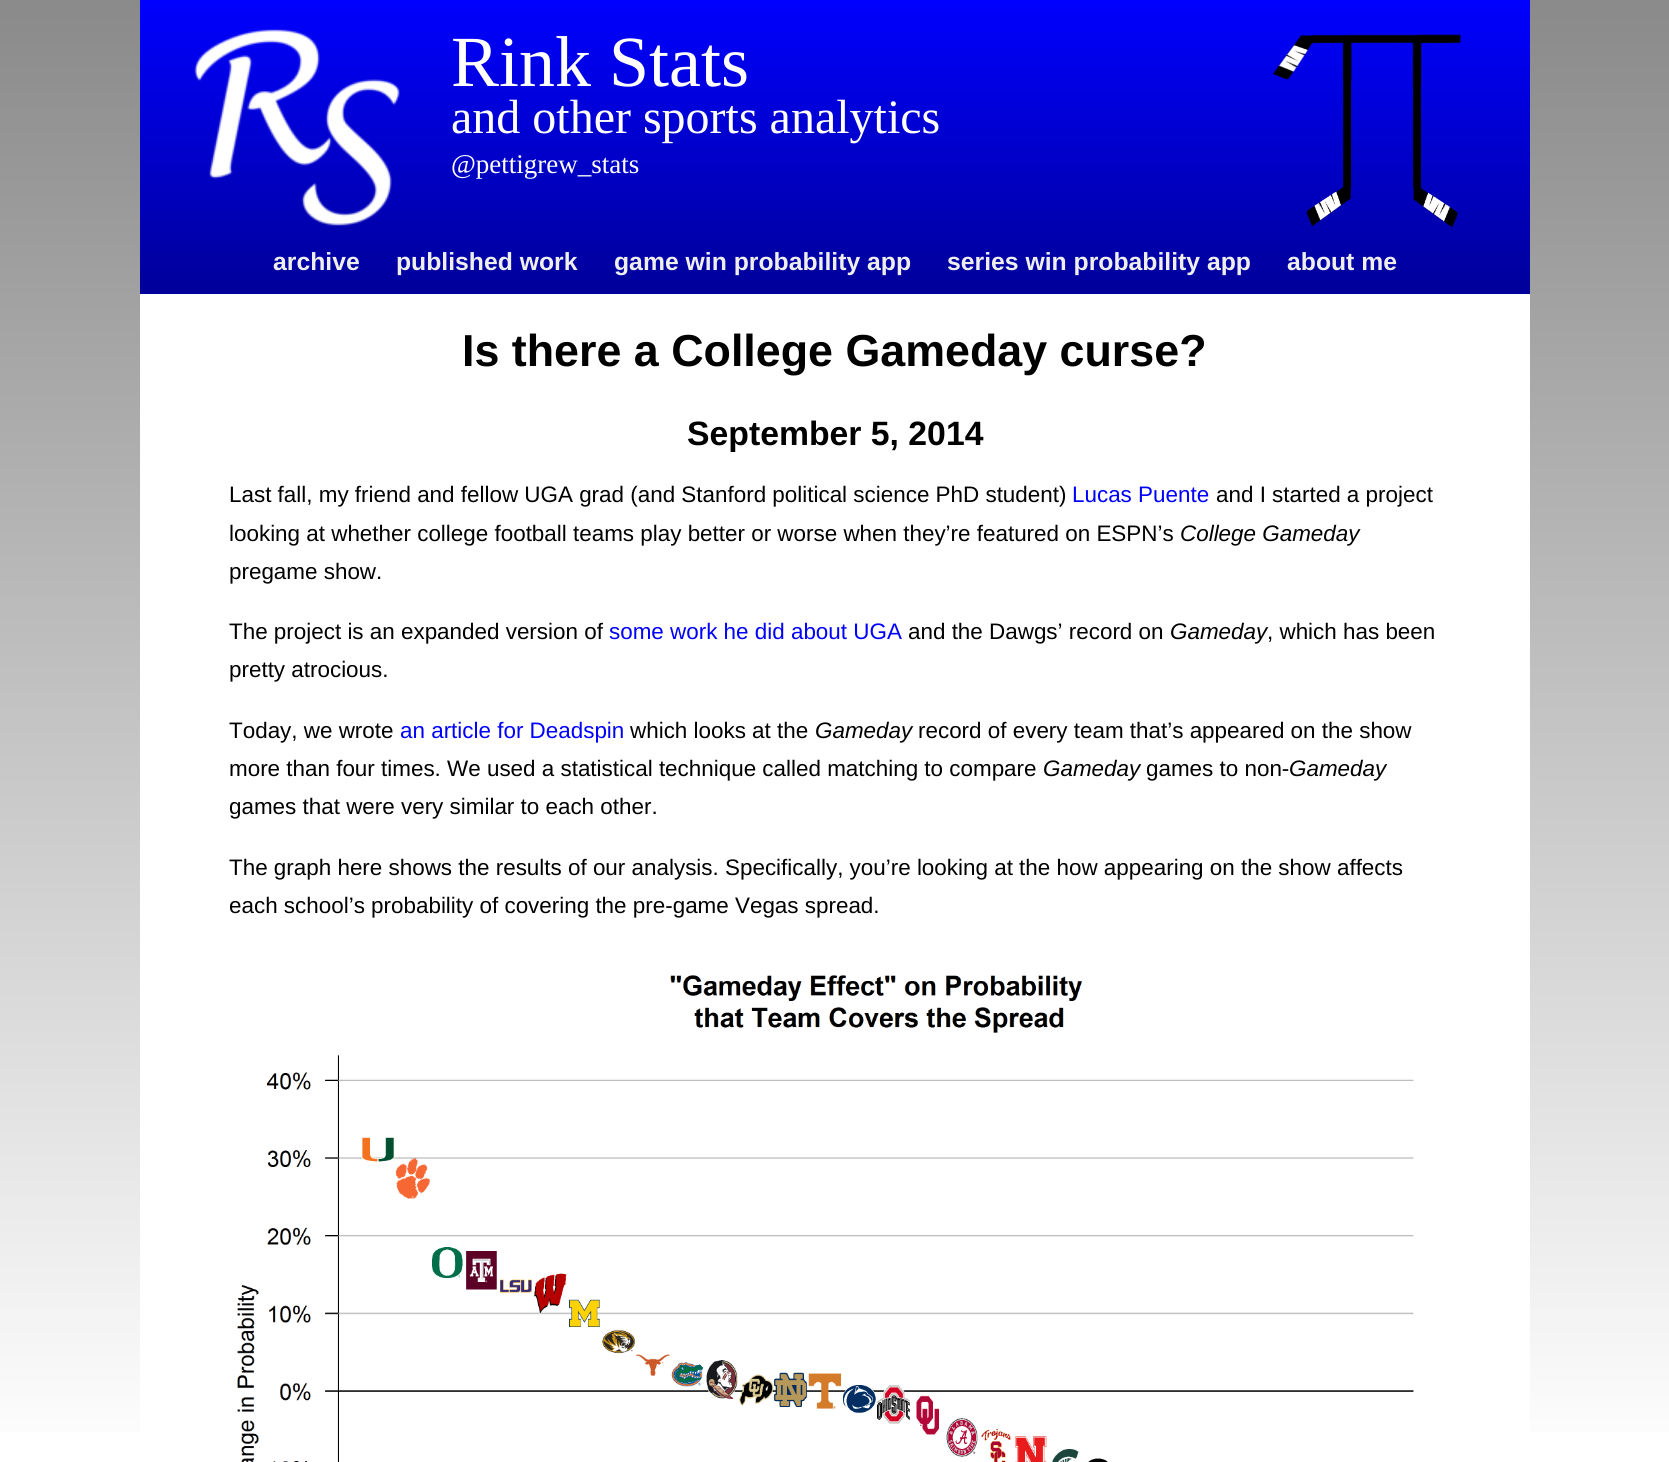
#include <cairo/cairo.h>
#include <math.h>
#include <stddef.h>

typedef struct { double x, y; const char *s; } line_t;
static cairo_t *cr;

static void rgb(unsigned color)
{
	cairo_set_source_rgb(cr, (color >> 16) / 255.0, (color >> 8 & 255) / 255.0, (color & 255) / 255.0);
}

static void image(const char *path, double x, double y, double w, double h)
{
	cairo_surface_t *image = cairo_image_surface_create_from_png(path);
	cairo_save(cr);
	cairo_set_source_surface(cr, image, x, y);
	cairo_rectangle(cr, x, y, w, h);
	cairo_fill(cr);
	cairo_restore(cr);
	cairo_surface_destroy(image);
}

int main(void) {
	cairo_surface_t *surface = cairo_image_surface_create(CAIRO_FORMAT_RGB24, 1669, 1462);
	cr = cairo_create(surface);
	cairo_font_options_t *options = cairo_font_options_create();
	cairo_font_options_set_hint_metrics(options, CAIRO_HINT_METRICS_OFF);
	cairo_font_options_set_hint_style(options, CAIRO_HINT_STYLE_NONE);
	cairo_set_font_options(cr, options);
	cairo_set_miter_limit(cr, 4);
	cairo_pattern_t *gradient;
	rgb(0xffffff);
	cairo_paint(cr);
	gradient = cairo_pattern_create_linear(835, 0, 835, 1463);
	cairo_pattern_add_color_stop_rgba(gradient, 0, 0.541, 0.541, 0.541, 1);
	cairo_pattern_add_color_stop_rgba(gradient, 1, 1, 1, 1, 1);
	cairo_set_source(cr, gradient);
	cairo_pattern_destroy(gradient);
	cairo_rectangle(cr, 0, 0, 1669, 1432);
	cairo_fill(cr);
	gradient = cairo_pattern_create_linear(835, 0, 835, 294);
	cairo_pattern_add_color_stop_rgba(gradient, 0, 0, 0, 1, 1);
	cairo_pattern_add_color_stop_rgba(gradient, 1, 0, 0, 0.6, 1);
	cairo_set_source(cr, gradient);
	cairo_pattern_destroy(gradient);
	cairo_rectangle(cr, 140, 0, 1390, 294);
	cairo_fill(cr);
	image("img/1.png", 194, 29, 206, 197);
	image("img/2.png", 1272, 34, 189, 194);
	rgb(0xffffff);
	cairo_rectangle(cr, 140, 294, 1390, 1138);
	cairo_fill(cr);
	image("img/3.png", 237, 975, 1177, 487);
	cairo_select_font_face(cr, "Liberation Serif", CAIRO_FONT_SLANT_NORMAL, CAIRO_FONT_WEIGHT_NORMAL);
	cairo_set_font_size(cr, 72);
	cairo_move_to(cr, 451, 86);
	cairo_show_text(cr, "Rink Stats");
	cairo_set_font_size(cr, 48);
	cairo_move_to(cr, 451, 133);
	cairo_show_text(cr, "and other sports analytics");
	cairo_set_font_size(cr, 27);
	cairo_move_to(cr, 451, 173);
	cairo_show_text(cr, "@pettigrew_stats");
	cairo_select_font_face(cr, "Liberation Sans", CAIRO_FONT_SLANT_NORMAL, CAIRO_FONT_WEIGHT_BOLD);
	cairo_set_font_size(cr, 24.75);
	rgb(0xeeeeee);
	{
		static const line_t items[] = {
			{273, 270, "archive"},
			{396, 270, "published work"},
			{614, 270, "game win probability app"},
			{947, 270, "series win probability app"},
			{1287, 270, "about me"},
		};
		for (size_t i = 0; i < sizeof items / sizeof *items; i++) {
			cairo_move_to(cr, items[i].x, items[i].y);
			cairo_show_text(cr, items[i].s);
		}
	}
	cairo_set_font_size(cr, 44.8);
	rgb(0x000000);
	cairo_move_to(cr, 462, 366);
	cairo_show_text(cr, "Is there a College Gameday curse?");
	cairo_set_font_size(cr, 33.75);
	cairo_move_to(cr, 687, 445);
	cairo_show_text(cr, "September 5, 2014");
	cairo_select_font_face(cr, "Liberation Sans", CAIRO_FONT_SLANT_NORMAL, CAIRO_FONT_WEIGHT_NORMAL);
	cairo_set_font_size(cr, 22.42);
	cairo_move_to(cr, 229, 502);
	cairo_show_text(cr, "Last fall, my friend and fellow UGA grad (and Stanford political science PhD student)");
	rgb(0x0000ff);
	cairo_move_to(cr, 1072, 502);
	cairo_show_text(cr, "Lucas Puente");
	rgb(0x000000);
	cairo_move_to(cr, 1216, 502);
	cairo_show_text(cr, "and I started a project");
	cairo_move_to(cr, 229, 541);
	cairo_show_text(cr, "looking at whether college football teams play better or worse when they’re featured on ESPN’s");
	cairo_select_font_face(cr, "Liberation Sans", CAIRO_FONT_SLANT_ITALIC, CAIRO_FONT_WEIGHT_NORMAL);
	cairo_move_to(cr, 1180, 541);
	cairo_show_text(cr, "College Gameday");
	cairo_select_font_face(cr, "Liberation Sans", CAIRO_FONT_SLANT_NORMAL, CAIRO_FONT_WEIGHT_NORMAL);
	cairo_move_to(cr, 229, 579);
	cairo_show_text(cr, "pregame show.");
	cairo_move_to(cr, 229, 639);
	cairo_show_text(cr, "The project is an expanded version of");
	rgb(0x0000ff);
	cairo_move_to(cr, 609, 639);
	cairo_show_text(cr, "some work he did about UGA");
	rgb(0x000000);
	cairo_move_to(cr, 908, 639);
	cairo_show_text(cr, "and the Dawgs’ record on");
	cairo_select_font_face(cr, "Liberation Sans", CAIRO_FONT_SLANT_ITALIC, CAIRO_FONT_WEIGHT_NORMAL);
	cairo_move_to(cr, 1170, 639);
	cairo_show_text(cr, "Gameday");
	cairo_select_font_face(cr, "Liberation Sans", CAIRO_FONT_SLANT_NORMAL, CAIRO_FONT_WEIGHT_NORMAL);
	{
		static const line_t items[] = {
			{1267, 639, ", which has been"},
			{229, 677, "pretty atrocious."},
			{229, 738, "Today, we wrote"},
		};
		for (size_t i = 0; i < sizeof items / sizeof *items; i++) {
			cairo_move_to(cr, items[i].x, items[i].y);
			cairo_show_text(cr, items[i].s);
		}
	}
	rgb(0x0000ff);
	cairo_move_to(cr, 400, 738);
	cairo_show_text(cr, "an article for Deadspin");
	rgb(0x000000);
	cairo_move_to(cr, 630, 738);
	cairo_show_text(cr, "which looks at the");
	cairo_select_font_face(cr, "Liberation Sans", CAIRO_FONT_SLANT_ITALIC, CAIRO_FONT_WEIGHT_NORMAL);
	cairo_move_to(cr, 815, 738);
	cairo_show_text(cr, "Gameday");
	cairo_select_font_face(cr, "Liberation Sans", CAIRO_FONT_SLANT_NORMAL, CAIRO_FONT_WEIGHT_NORMAL);
	cairo_move_to(cr, 918, 738);
	cairo_show_text(cr, "record of every team that’s appeared on the show");
	cairo_move_to(cr, 229, 776);
	cairo_show_text(cr, "more than four times. We used a statistical technique called matching to compare");
	cairo_select_font_face(cr, "Liberation Sans", CAIRO_FONT_SLANT_ITALIC, CAIRO_FONT_WEIGHT_NORMAL);
	cairo_move_to(cr, 1043, 776);
	cairo_show_text(cr, "Gameday");
	cairo_select_font_face(cr, "Liberation Sans", CAIRO_FONT_SLANT_NORMAL, CAIRO_FONT_WEIGHT_NORMAL);
	cairo_move_to(cr, 1146, 776);
	cairo_show_text(cr, "games to non-");
	cairo_select_font_face(cr, "Liberation Sans", CAIRO_FONT_SLANT_ITALIC, CAIRO_FONT_WEIGHT_NORMAL);
	cairo_move_to(cr, 1289, 776);
	cairo_show_text(cr, "Gameday");
	cairo_select_font_face(cr, "Liberation Sans", CAIRO_FONT_SLANT_NORMAL, CAIRO_FONT_WEIGHT_NORMAL);
	{
		static const line_t items[] = {
			{229, 814, "games that were very similar to each other."},
			{229, 875, "The graph here shows the results of our analysis. Specifically, you’re looking at the how appearing on the show affects"},
			{229, 913, "each school’s probability of covering the pre-game Vegas spread."},
		};
		for (size_t i = 0; i < sizeof items / sizeof *items; i++) {
			cairo_move_to(cr, items[i].x, items[i].y);
			cairo_show_text(cr, items[i].s);
		}
	}
	cairo_surface_write_to_png(surface, "page.png");
	cairo_font_options_destroy(options);
	cairo_destroy(cr);
	cairo_surface_destroy(surface);
	return 0;
}
